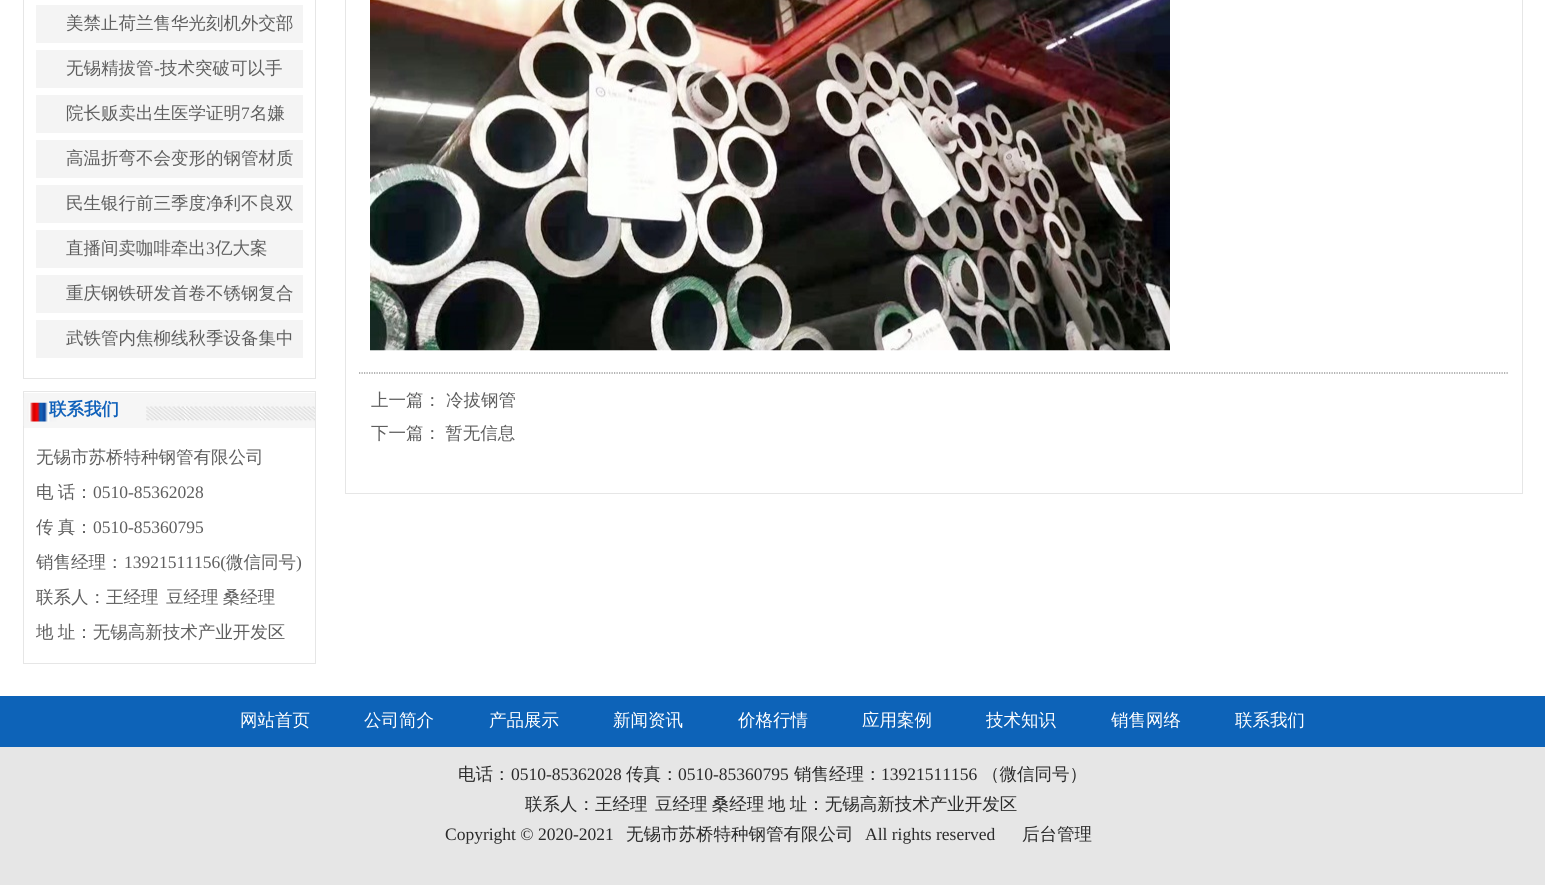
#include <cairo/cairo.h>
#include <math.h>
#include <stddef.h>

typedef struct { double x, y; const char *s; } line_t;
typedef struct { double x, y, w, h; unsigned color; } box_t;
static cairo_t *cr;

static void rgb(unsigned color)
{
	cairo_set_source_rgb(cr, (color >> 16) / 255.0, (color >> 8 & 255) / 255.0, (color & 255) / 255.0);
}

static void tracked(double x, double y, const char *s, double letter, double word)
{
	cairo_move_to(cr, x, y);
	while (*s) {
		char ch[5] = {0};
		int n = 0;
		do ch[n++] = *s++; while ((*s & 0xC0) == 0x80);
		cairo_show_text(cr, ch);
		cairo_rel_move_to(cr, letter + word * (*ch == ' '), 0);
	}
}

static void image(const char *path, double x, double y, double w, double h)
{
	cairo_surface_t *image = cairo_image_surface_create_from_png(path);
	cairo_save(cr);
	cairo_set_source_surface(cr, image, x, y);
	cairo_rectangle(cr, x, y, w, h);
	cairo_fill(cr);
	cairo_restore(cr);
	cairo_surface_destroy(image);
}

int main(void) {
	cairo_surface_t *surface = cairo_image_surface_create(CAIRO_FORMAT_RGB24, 1545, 885);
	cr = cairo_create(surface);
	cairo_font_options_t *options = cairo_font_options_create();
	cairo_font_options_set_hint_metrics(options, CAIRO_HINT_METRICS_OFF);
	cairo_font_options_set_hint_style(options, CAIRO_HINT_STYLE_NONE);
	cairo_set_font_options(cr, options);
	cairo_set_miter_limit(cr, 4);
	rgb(0xffffff);
	cairo_paint(cr);
	cairo_rectangle(cr, 23.5, -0.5, 292, 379);
	rgb(0xe6e6e6);
	cairo_set_line_width(cr, 1);
	cairo_stroke(cr);
	{
		static const box_t items[] = {
			{36, 5, 267, 38, 0xf4f4f4},
			{36, 50, 267, 38, 0xf4f4f4},
			{36, 95, 267, 38, 0xf4f4f4},
			{36, 140, 267, 38, 0xf4f4f4},
			{36, 185, 267, 38, 0xf4f4f4},
			{36, 230, 267, 38, 0xf4f4f4},
			{36, 275, 267, 38, 0xf4f4f4},
			{36, 320, 267, 38, 0xf4f4f4},
		};
		for (size_t i = 0; i < sizeof items / sizeof *items; i++) {
			rgb(items[i].color);
			cairo_rectangle(cr, items[i].x, items[i].y, items[i].w, items[i].h);
			cairo_fill(cr);
		}
	}
	cairo_rectangle(cr, 23.5, 391.5, 292, 272);
	rgb(0xe6e6e6);
	cairo_stroke(cr);
	rgb(0xf6f6f6);
	cairo_rectangle(cr, 24, 393, 291, 35);
	cairo_fill(cr);
	image("img/1.png", 23, 398, 292, 28);
	cairo_rectangle(cr, 345.5, -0.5, 1177, 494);
	rgb(0xe6e6e6);
	cairo_stroke(cr);
	image("img/2.png", 370, 0, 800, 351);
	cairo_new_path(cr);
	cairo_move_to(cr, 359, 373);
	cairo_line_to(cr, 1509, 373);
	rgb(0x838383);
	cairo_set_line_width(cr, 1.2);
	cairo_set_dash(cr, (double[]){1.25, 1.25}, 2, 0);
	cairo_stroke(cr);
	rgb(0xe6e6e6);
	cairo_rectangle(cr, 0, 747, 1545, 138);
	cairo_fill(cr);
	rgb(0x0d63b8);
	cairo_rectangle(cr, 0, 696, 1545, 51);
	cairo_fill(cr);
	cairo_select_font_face(cr, "WenQuanYi Zen Hei Medium", CAIRO_FONT_SLANT_NORMAL, CAIRO_FONT_WEIGHT_NORMAL);
	cairo_set_font_size(cr, 17.5);
	rgb(0x5e5e5e);
	cairo_move_to(cr, 66, 29);
	cairo_show_text(cr, "美禁止荷兰售华光刻机外交部");
	cairo_move_to(cr, 66, 74);
	cairo_show_text(cr, "无锡精拔管");
	cairo_select_font_face(cr, "Liberation Serif", CAIRO_FONT_SLANT_NORMAL, CAIRO_FONT_WEIGHT_NORMAL);
	cairo_move_to(cr, 154, 74);
	cairo_show_text(cr, "-");
	cairo_select_font_face(cr, "WenQuanYi Zen Hei Medium", CAIRO_FONT_SLANT_NORMAL, CAIRO_FONT_WEIGHT_NORMAL);
	cairo_move_to(cr, 160, 74);
	cairo_show_text(cr, "技术突破可以手");
	cairo_move_to(cr, 66, 119);
	cairo_show_text(cr, "院长贩卖出生医学证明");
	cairo_select_font_face(cr, "Liberation Serif", CAIRO_FONT_SLANT_NORMAL, CAIRO_FONT_WEIGHT_NORMAL);
	cairo_move_to(cr, 241, 119);
	cairo_show_text(cr, "7");
	cairo_select_font_face(cr, "WenQuanYi Zen Hei Medium", CAIRO_FONT_SLANT_NORMAL, CAIRO_FONT_WEIGHT_NORMAL);
	{
		static const line_t items[] = {
			{250, 119, "名嫌"},
			{66, 164, "高温折弯不会变形的钢管材质"},
			{66, 209, "民生银行前三季度净利不良双"},
			{66, 254, "直播间卖咖啡牵出"},
		};
		for (size_t i = 0; i < sizeof items / sizeof *items; i++) {
			cairo_move_to(cr, items[i].x, items[i].y);
			cairo_show_text(cr, items[i].s);
		}
	}
	cairo_select_font_face(cr, "Liberation Serif", CAIRO_FONT_SLANT_NORMAL, CAIRO_FONT_WEIGHT_NORMAL);
	cairo_move_to(cr, 206, 254);
	cairo_show_text(cr, "3");
	cairo_select_font_face(cr, "WenQuanYi Zen Hei Medium", CAIRO_FONT_SLANT_NORMAL, CAIRO_FONT_WEIGHT_NORMAL);
	{
		static const line_t items[] = {
			{215, 254, "亿大案"},
			{66, 299, "重庆钢铁研发首卷不锈钢复合"},
			{66, 344, "武铁管内焦柳线秋季设备集中"},
		};
		for (size_t i = 0; i < sizeof items / sizeof *items; i++) {
			cairo_move_to(cr, items[i].x, items[i].y);
			cairo_show_text(cr, items[i].s);
		}
	}
	cairo_select_font_face(cr, "WenQuanYi Zen Hei", CAIRO_FONT_SLANT_NORMAL, CAIRO_FONT_WEIGHT_BOLD);
	rgb(0x1061ba);
	cairo_move_to(cr, 49, 415);
	cairo_show_text(cr, "联系我们");
	cairo_select_font_face(cr, "WenQuanYi Zen Hei Medium", CAIRO_FONT_SLANT_NORMAL, CAIRO_FONT_WEIGHT_NORMAL);
	rgb(0x5e5e5e);
	cairo_move_to(cr, 36, 463);
	cairo_show_text(cr, "无锡市苏桥特种钢管有限公司");
	tracked(36, 498, "电 话：", 0, -1);
	cairo_select_font_face(cr, "Liberation Serif", CAIRO_FONT_SLANT_NORMAL, CAIRO_FONT_WEIGHT_NORMAL);
	cairo_move_to(cr, 93, 498);
	cairo_show_text(cr, "0510-85362028");
	cairo_select_font_face(cr, "WenQuanYi Zen Hei Medium", CAIRO_FONT_SLANT_NORMAL, CAIRO_FONT_WEIGHT_NORMAL);
	tracked(36, 533, "传 真：", 0, -1);
	cairo_select_font_face(cr, "Liberation Serif", CAIRO_FONT_SLANT_NORMAL, CAIRO_FONT_WEIGHT_NORMAL);
	cairo_move_to(cr, 93, 533);
	cairo_show_text(cr, "0510-85360795");
	cairo_select_font_face(cr, "WenQuanYi Zen Hei Medium", CAIRO_FONT_SLANT_NORMAL, CAIRO_FONT_WEIGHT_NORMAL);
	cairo_move_to(cr, 36, 568);
	cairo_show_text(cr, "销售经理：");
	cairo_select_font_face(cr, "Liberation Serif", CAIRO_FONT_SLANT_NORMAL, CAIRO_FONT_WEIGHT_NORMAL);
	cairo_move_to(cr, 124, 568);
	cairo_show_text(cr, "13921511156(");
	cairo_select_font_face(cr, "WenQuanYi Zen Hei Medium", CAIRO_FONT_SLANT_NORMAL, CAIRO_FONT_WEIGHT_NORMAL);
	cairo_move_to(cr, 226, 568);
	cairo_show_text(cr, "微信同号");
	cairo_select_font_face(cr, "Liberation Serif", CAIRO_FONT_SLANT_NORMAL, CAIRO_FONT_WEIGHT_NORMAL);
	cairo_move_to(cr, 296, 568);
	cairo_show_text(cr, ")");
	cairo_select_font_face(cr, "WenQuanYi Zen Hei Medium", CAIRO_FONT_SLANT_NORMAL, CAIRO_FONT_WEIGHT_NORMAL);
	cairo_move_to(cr, 36, 603);
	cairo_show_text(cr, "联系人：王经理");
	tracked(166, 603, "豆经理 桑经理", 0, -1);
	tracked(36, 638, "地 址：无锡高新技术产业开发区", 0, -1);
	cairo_move_to(cr, 371, 406);
	cairo_show_text(cr, "上一篇：");
	cairo_move_to(cr, 446, 406);
	cairo_show_text(cr, "冷拔钢管");
	tracked(371, 439, "下一篇： 暂无信息", 0, -1);
	rgb(0xffffff);
	{
		static const line_t items[] = {
			{240, 726, "网站首页"},
			{364, 726, "公司简介"},
			{489, 726, "产品展示"},
			{613, 726, "新闻资讯"},
			{738, 726, "价格行情"},
			{862, 726, "应用案例"},
			{986, 726, "技术知识"},
			{1111, 726, "销售网络"},
			{1235, 726, "联系我们"},
		};
		for (size_t i = 0; i < sizeof items / sizeof *items; i++) {
			cairo_move_to(cr, items[i].x, items[i].y);
			cairo_show_text(cr, items[i].s);
		}
	}
	rgb(0x2a2a2a);
	cairo_move_to(cr, 458, 780);
	cairo_show_text(cr, "电话：");
	cairo_select_font_face(cr, "Liberation Serif", CAIRO_FONT_SLANT_NORMAL, CAIRO_FONT_WEIGHT_NORMAL);
	cairo_move_to(cr, 511, 780);
	cairo_show_text(cr, "0510-85362028");
	cairo_select_font_face(cr, "WenQuanYi Zen Hei Medium", CAIRO_FONT_SLANT_NORMAL, CAIRO_FONT_WEIGHT_NORMAL);
	cairo_move_to(cr, 626, 780);
	cairo_show_text(cr, "传真：");
	cairo_select_font_face(cr, "Liberation Serif", CAIRO_FONT_SLANT_NORMAL, CAIRO_FONT_WEIGHT_NORMAL);
	cairo_move_to(cr, 678, 780);
	cairo_show_text(cr, "0510-85360795");
	cairo_select_font_face(cr, "WenQuanYi Zen Hei Medium", CAIRO_FONT_SLANT_NORMAL, CAIRO_FONT_WEIGHT_NORMAL);
	cairo_move_to(cr, 794, 780);
	cairo_show_text(cr, "销售经理：");
	cairo_select_font_face(cr, "Liberation Serif", CAIRO_FONT_SLANT_NORMAL, CAIRO_FONT_WEIGHT_NORMAL);
	cairo_move_to(cr, 881, 780);
	cairo_show_text(cr, "13921511156");
	cairo_select_font_face(cr, "WenQuanYi Zen Hei Medium", CAIRO_FONT_SLANT_NORMAL, CAIRO_FONT_WEIGHT_NORMAL);
	cairo_move_to(cr, 982, 780);
	cairo_show_text(cr, "（微信同号）");
	cairo_move_to(cr, 525, 810);
	cairo_show_text(cr, "联系人：王经理");
	tracked(655, 810, "豆经理 桑经理", 0, -1);
	tracked(768, 810, "地 址：无锡高新技术产业开发区", 0, -1);
	cairo_select_font_face(cr, "Liberation Serif", CAIRO_FONT_SLANT_NORMAL, CAIRO_FONT_WEIGHT_NORMAL);
	cairo_move_to(cr, 445, 840);
	cairo_show_text(cr, "Copyright © 2020-2021");
	cairo_select_font_face(cr, "WenQuanYi Zen Hei Medium", CAIRO_FONT_SLANT_NORMAL, CAIRO_FONT_WEIGHT_NORMAL);
	cairo_move_to(cr, 626, 840);
	cairo_show_text(cr, "无锡市苏桥特种钢管有限公司");
	cairo_select_font_face(cr, "Liberation Serif", CAIRO_FONT_SLANT_NORMAL, CAIRO_FONT_WEIGHT_NORMAL);
	cairo_move_to(cr, 865, 840);
	cairo_show_text(cr, "All rights reserved");
	cairo_select_font_face(cr, "WenQuanYi Zen Hei Medium", CAIRO_FONT_SLANT_NORMAL, CAIRO_FONT_WEIGHT_NORMAL);
	cairo_move_to(cr, 1022, 840);
	cairo_show_text(cr, "后台管理");
	cairo_surface_write_to_png(surface, "page.png");
	cairo_font_options_destroy(options);
	cairo_destroy(cr);
	cairo_surface_destroy(surface);
	return 0;
}
